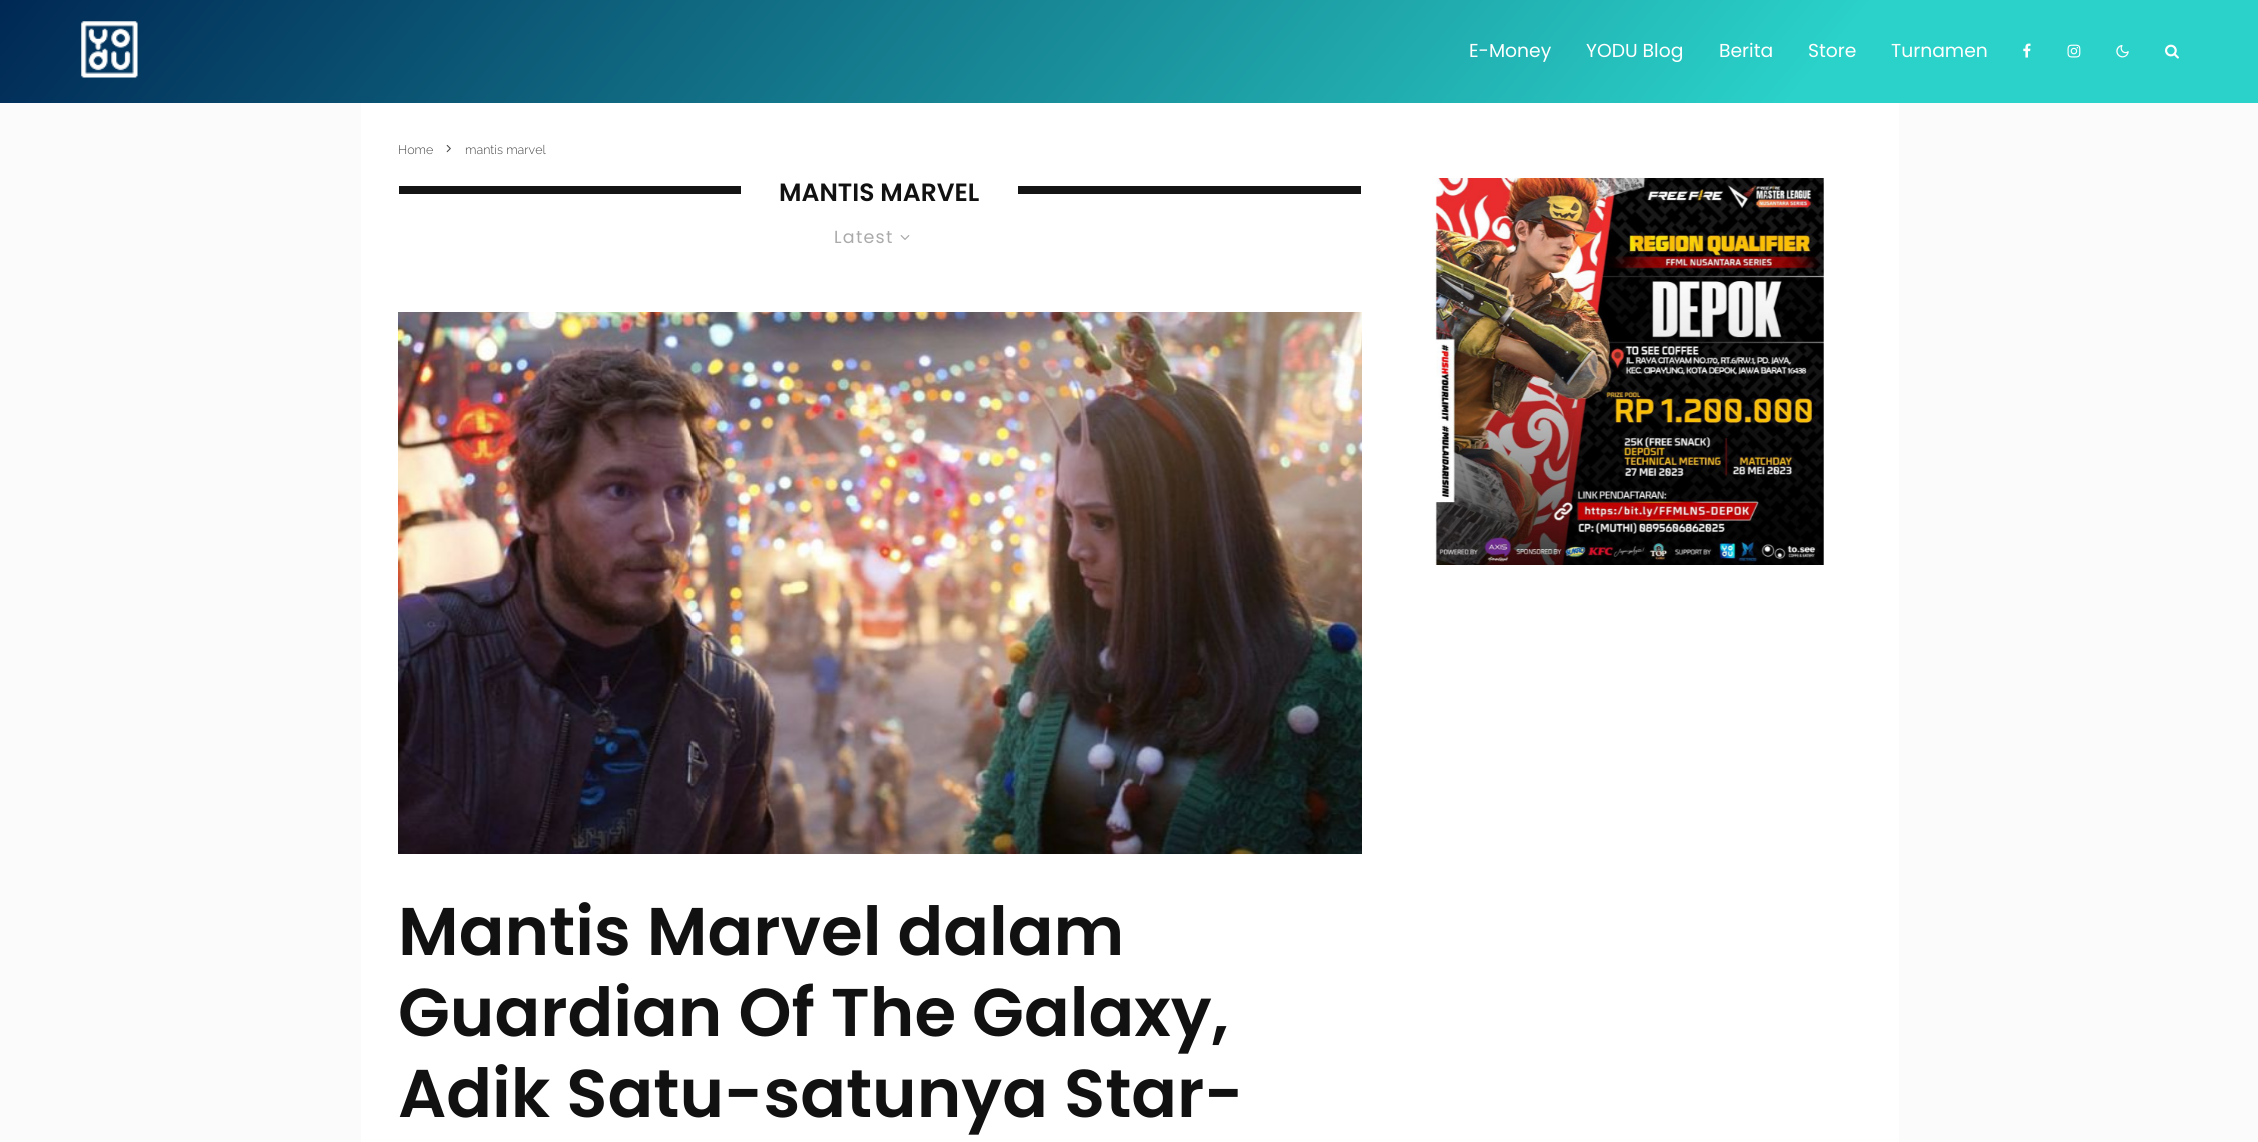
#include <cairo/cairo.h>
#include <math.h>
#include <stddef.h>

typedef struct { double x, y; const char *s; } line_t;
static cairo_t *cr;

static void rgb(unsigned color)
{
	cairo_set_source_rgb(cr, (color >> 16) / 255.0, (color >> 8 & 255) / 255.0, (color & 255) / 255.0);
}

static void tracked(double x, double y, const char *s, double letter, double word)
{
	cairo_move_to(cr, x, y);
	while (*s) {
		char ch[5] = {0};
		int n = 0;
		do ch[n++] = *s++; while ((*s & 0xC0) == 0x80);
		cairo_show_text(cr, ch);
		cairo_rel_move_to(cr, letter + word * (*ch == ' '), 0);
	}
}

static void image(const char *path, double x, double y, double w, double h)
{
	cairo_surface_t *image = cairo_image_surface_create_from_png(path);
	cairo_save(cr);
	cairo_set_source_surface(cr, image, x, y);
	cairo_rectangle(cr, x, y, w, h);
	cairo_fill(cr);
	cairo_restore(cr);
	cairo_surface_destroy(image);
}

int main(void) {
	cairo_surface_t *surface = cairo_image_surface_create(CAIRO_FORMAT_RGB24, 2258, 1142);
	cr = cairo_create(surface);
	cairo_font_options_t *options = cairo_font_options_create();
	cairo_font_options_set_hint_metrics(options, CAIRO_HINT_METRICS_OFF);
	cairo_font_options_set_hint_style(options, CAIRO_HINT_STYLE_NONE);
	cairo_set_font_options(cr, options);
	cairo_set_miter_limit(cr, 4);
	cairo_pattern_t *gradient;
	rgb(0xfbfbfb);
	cairo_paint(cr);
	gradient = cairo_pattern_create_linear(441, -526, 1817, 629);
	cairo_pattern_add_color_stop_rgba(gradient, 0, 0, 0.157, 0.333, 1);
	cairo_pattern_add_color_stop_rgba(gradient, 0.8, 0.165, 0.824, 0.788, 1);
	cairo_set_source(cr, gradient);
	cairo_pattern_destroy(gradient);
	cairo_rectangle(cr, 0, 0, 2258, 103);
	cairo_fill(cr);
	image("img/1.png", 81, 21, 57, 57);
	image("img/2.png", 2023, 43, 8, 15);
	image("img/3.png", 2067, 44, 14, 14);
	image("img/4.png", 2116, 45, 13, 13);
	image("img/5.png", 2165, 44, 14, 15);
	rgb(0xffffff);
	cairo_rectangle(cr, 361, 103, 1538, 1039);
	cairo_fill(cr);
	image("img/6.png", 446, 144, 5, 9);
	rgb(0x141414);
	cairo_rectangle(cr, 399, 186, 342, 8);
	cairo_fill(cr);
	cairo_rectangle(cr, 1018, 186, 343, 8);
	cairo_fill(cr);
	image("img/7.png", 900, 235, 10, 5);
	image("img/8.png", 398, 312, 964, 542);
	image("img/9.png", 1435, 178, 389, 387);
	cairo_select_font_face(cr, "Poppins", CAIRO_FONT_SLANT_NORMAL, CAIRO_FONT_WEIGHT_NORMAL);
	cairo_set_font_size(cr, 18.75);
	rgb(0xffffff);
	{
		static const line_t items[] = {
			{1469, 57, "E-Money"},
			{1586, 57, "YODU Blog"},
			{1719, 57, "Berita"},
			{1808, 57, "Store"},
			{1891, 57, "Turnamen"},
		};
		for (size_t i = 0; i < sizeof items / sizeof *items; i++) {
			cairo_move_to(cr, items[i].x, items[i].y);
			cairo_show_text(cr, items[i].s);
		}
	}
	cairo_select_font_face(cr, "Raleway Light", CAIRO_FONT_SLANT_NORMAL, CAIRO_FONT_WEIGHT_NORMAL);
	cairo_set_font_size(cr, 12.5);
	rgb(0x444444);
	cairo_move_to(cr, 398, 154);
	cairo_show_text(cr, "Home");
	cairo_move_to(cr, 465, 154);
	cairo_show_text(cr, "mantis marvel");
	cairo_select_font_face(cr, "Poppins SemiBold", CAIRO_FONT_SLANT_NORMAL, CAIRO_FONT_WEIGHT_NORMAL);
	cairo_set_font_size(cr, 25);
	rgb(0x111111);
	cairo_move_to(cr, 779, 201);
	cairo_show_text(cr, "MANTIS MARVEL");
	cairo_select_font_face(cr, "Poppins", CAIRO_FONT_SLANT_NORMAL, CAIRO_FONT_WEIGHT_NORMAL);
	cairo_set_font_size(cr, 17.5);
	rgb(0xaaaaaa);
	tracked(834, 243, "Latest", 1.25, 0);
	cairo_select_font_face(cr, "Poppins SemiBold", CAIRO_FONT_SLANT_NORMAL, CAIRO_FONT_WEIGHT_NORMAL);
	cairo_set_font_size(cr, 67.5);
	rgb(0x111111);
	{
		static const line_t items[] = {
			{398, 955, "Mantis Marvel dalam"},
			{398, 1036, "Guardian Of The Galaxy,"},
			{398, 1117, "Adik Satu-satunya Star-"},
		};
		for (size_t i = 0; i < sizeof items / sizeof *items; i++) {
			cairo_move_to(cr, items[i].x, items[i].y);
			cairo_show_text(cr, items[i].s);
		}
	}
	cairo_surface_write_to_png(surface, "page.png");
	cairo_font_options_destroy(options);
	cairo_destroy(cr);
	cairo_surface_destroy(surface);
	return 0;
}
